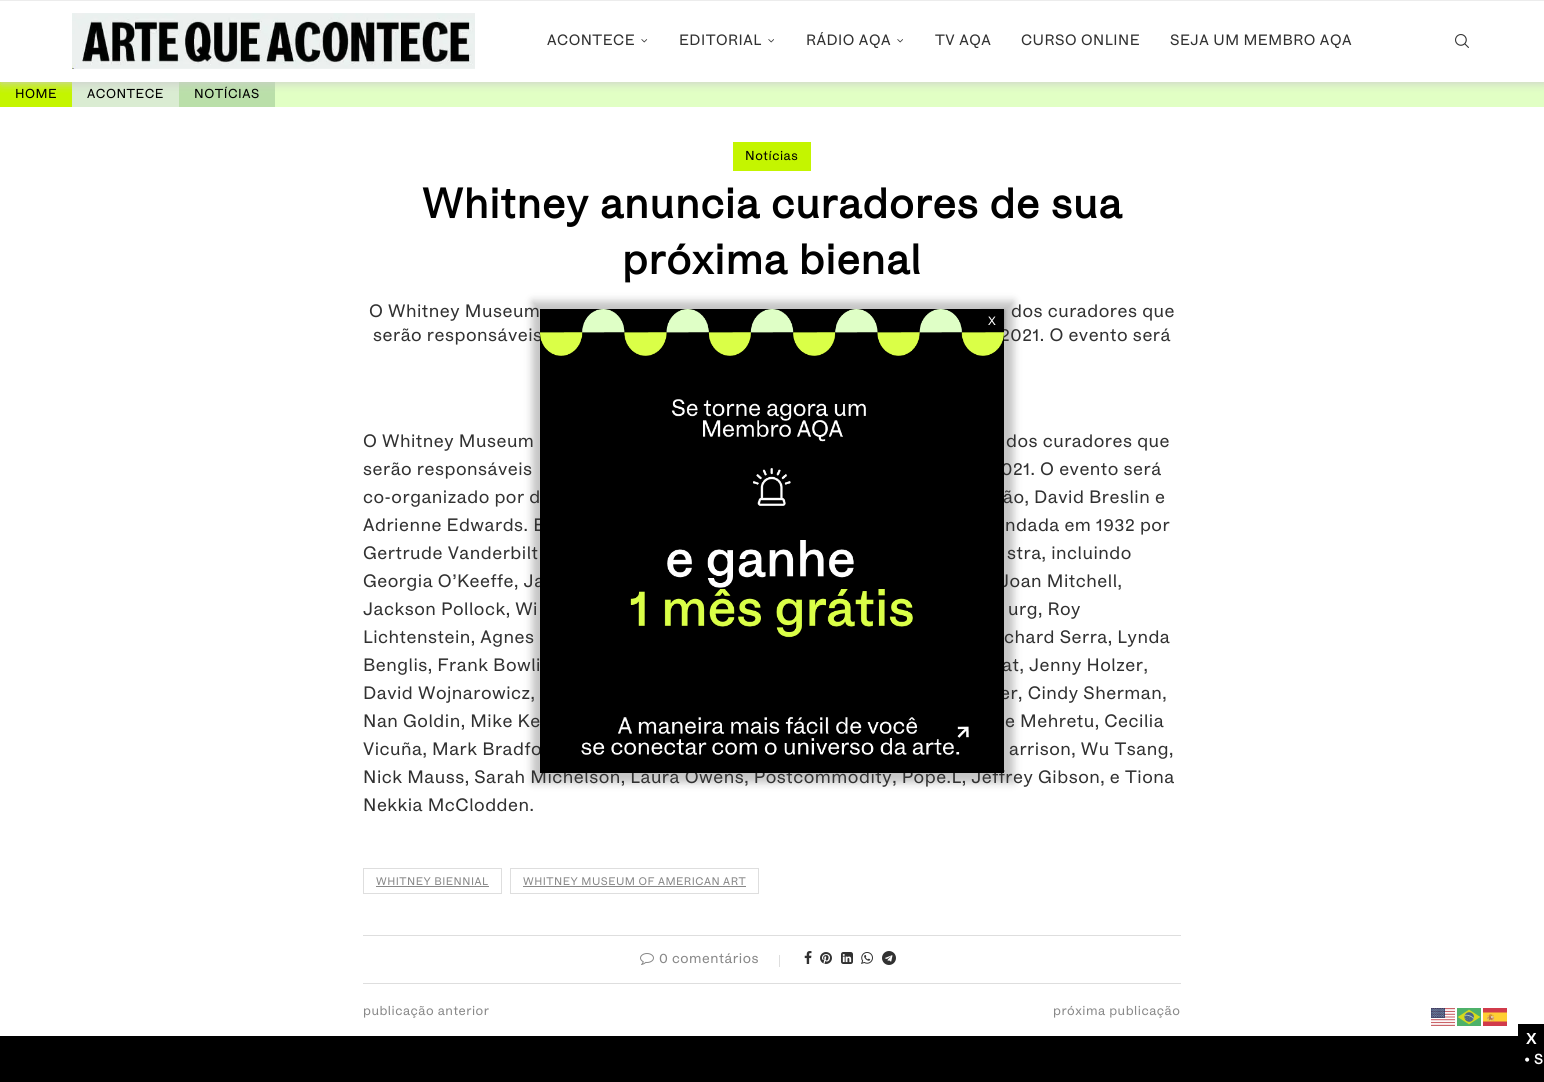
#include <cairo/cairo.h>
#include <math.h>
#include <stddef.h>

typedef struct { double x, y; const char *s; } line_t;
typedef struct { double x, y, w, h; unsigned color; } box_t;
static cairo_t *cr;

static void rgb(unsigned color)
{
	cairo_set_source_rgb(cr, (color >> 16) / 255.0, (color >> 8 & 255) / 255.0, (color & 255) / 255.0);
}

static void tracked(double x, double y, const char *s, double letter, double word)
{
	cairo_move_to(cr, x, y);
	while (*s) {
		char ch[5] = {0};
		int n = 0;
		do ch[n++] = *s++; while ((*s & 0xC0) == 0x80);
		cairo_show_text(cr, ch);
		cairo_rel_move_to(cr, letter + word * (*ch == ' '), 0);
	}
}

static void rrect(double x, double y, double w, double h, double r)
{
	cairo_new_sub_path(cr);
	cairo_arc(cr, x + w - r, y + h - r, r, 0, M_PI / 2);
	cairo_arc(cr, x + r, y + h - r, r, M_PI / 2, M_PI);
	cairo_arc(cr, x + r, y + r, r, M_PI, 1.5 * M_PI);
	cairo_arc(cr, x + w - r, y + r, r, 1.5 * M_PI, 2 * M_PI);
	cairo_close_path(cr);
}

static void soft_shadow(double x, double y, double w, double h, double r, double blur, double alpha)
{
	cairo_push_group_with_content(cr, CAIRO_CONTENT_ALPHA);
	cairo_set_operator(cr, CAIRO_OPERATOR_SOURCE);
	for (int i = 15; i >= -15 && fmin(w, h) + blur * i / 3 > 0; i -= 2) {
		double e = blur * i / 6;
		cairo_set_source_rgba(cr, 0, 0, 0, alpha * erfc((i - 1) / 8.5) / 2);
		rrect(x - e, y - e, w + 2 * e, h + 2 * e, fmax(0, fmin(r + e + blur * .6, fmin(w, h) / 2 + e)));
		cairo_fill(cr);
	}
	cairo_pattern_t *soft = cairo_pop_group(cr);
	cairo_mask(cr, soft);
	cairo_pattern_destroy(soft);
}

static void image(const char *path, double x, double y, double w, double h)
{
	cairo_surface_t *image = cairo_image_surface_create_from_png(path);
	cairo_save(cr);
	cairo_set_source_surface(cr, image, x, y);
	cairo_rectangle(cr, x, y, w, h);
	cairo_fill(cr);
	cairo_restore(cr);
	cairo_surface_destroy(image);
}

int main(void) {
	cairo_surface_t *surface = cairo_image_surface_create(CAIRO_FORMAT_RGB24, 1544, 1082);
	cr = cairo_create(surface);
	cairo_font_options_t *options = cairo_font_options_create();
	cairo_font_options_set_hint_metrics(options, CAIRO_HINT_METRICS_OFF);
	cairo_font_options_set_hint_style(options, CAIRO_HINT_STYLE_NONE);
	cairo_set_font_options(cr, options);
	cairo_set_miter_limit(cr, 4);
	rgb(0xffffff);
	cairo_paint(cr);
	{
		static const box_t items[] = {
			{275, 82, 1269, 25, 0xe1ffc4},
			{0, 82, 72, 25, 0xc4f500},
			{72, 82, 107, 25, 0xdaecd2},
			{179, 82, 96, 25, 0xbadfa9},
		};
		for (size_t i = 0; i < sizeof items / sizeof *items; i++) {
			rgb(items[i].color);
			cairo_rectangle(cr, items[i].x, items[i].y, items[i].w, items[i].h);
			cairo_fill(cr);
		}
	}
	cairo_save(cr);
	cairo_rectangle(cr, 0, 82, 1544, 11);
	cairo_clip(cr);
	rgb(0xcccccc);
	soft_shadow(1, 1, 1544, 82, 0, 5, 1);
	cairo_restore(cr);
	rgb(0xececec);
	cairo_rectangle(cr, 0, 0, 1544, 1);
	cairo_fill(cr);
	image("img/1.png", 72, 13, 403, 56);
	image("img/2.png", 641, 39, 7, 4);
	image("img/3.png", 768, 39, 6, 4);
	image("img/4.png", 897, 39, 6, 4);
	image("img/5.png", 1455, 34, 14, 14);
	rgb(0xc4f500);
	cairo_rectangle(cr, 733, 142, 78, 29);
	cairo_fill(cr);
	cairo_rectangle(cr, 363.5, 868.5, 138, 25);
	rgb(0xdedede);
	cairo_set_line_width(cr, 1);
	cairo_stroke(cr);
	rgb(0x888888);
	cairo_rectangle(cr, 376, 886, 113, 1);
	cairo_fill(cr);
	cairo_rectangle(cr, 510.5, 868.5, 248, 25);
	rgb(0xdedede);
	cairo_stroke(cr);
	rgb(0x888888);
	cairo_rectangle(cr, 523, 886, 223, 1);
	cairo_fill(cr);
	rgb(0xdedede);
	cairo_rectangle(cr, 363, 935, 818, 1);
	cairo_fill(cr);
	image("img/6.png", 640, 953, 14, 12);
	cairo_rectangle(cr, 779, 955, 1, 12);
	cairo_fill(cr);
	image("img/7.png", 804, 951, 8, 13);
	image("img/8.png", 820, 952, 12, 12);
	image("img/9.png", 841, 952, 12, 12);
	image("img/10.png", 861, 952, 12, 12);
	image("img/11.png", 882, 951, 14, 14);
	cairo_rectangle(cr, 363, 983, 818, 1);
	cairo_fill(cr);
	rgb(0x020202);
	soft_shadow(532, 301, 482, 482, 0, 4, 0.23);
	image("img/13.png", 1431, 1008, 24, 18);
	image("img/14.png", 1457, 1008, 24, 18);
	image("img/15.png", 1483, 1008, 24, 18);
	rgb(0x000000);
	cairo_rectangle(cr, 0, 1036, 1544, 46);
	cairo_fill(cr);
	cairo_rectangle(cr, 1518, 1024, 26, 12);
	cairo_fill(cr);
	cairo_select_font_face(cr, "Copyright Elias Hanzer", CAIRO_FONT_SLANT_NORMAL, CAIRO_FONT_WEIGHT_NORMAL);
	cairo_set_font_size(cr, 15);
	rgb(0x313131);
	{
		static const line_t items[] = {
			{547, 45, "ACONTECE"},
			{679, 45, "EDITORIAL"},
			{806, 45, "RÁDIO AQA"},
			{935, 45, "TV AQA"},
			{1021, 45, "CURSO ONLINE"},
			{1170, 45, "SEJA UM MEMBRO AQA"},
		};
		for (size_t i = 0; i < sizeof items / sizeof *items; i++) {
			tracked(items[i].x, items[i].y, items[i].s, 0.5, 0);
		}
	}
	cairo_set_font_size(cr, 13);
	rgb(0x000000);
	{
		static const line_t items[] = {
			{15, 98, "HOME"},
			{87, 98, "ACONTECE"},
			{194, 98, "NOTÍCIAS"},
			{745, 160, "Notícias"},
		};
		for (size_t i = 0; i < sizeof items / sizeof *items; i++) {
			tracked(items[i].x, items[i].y, items[i].s, 0.5, 0);
		}
	}
	cairo_select_font_face(cr, "Copyright Elias Hanzer", CAIRO_FONT_SLANT_NORMAL, CAIRO_FONT_WEIGHT_BOLD);
	cairo_set_font_size(cr, 42);
	tracked(422, 218, "Whitney anuncia curadores de sua", 1, 0);
	tracked(622, 274, "próxima bienal", 1, 0);
	cairo_select_font_face(cr, "Copyright Elias Hanzer", CAIRO_FONT_SLANT_NORMAL, CAIRO_FONT_WEIGHT_NORMAL);
	cairo_set_font_size(cr, 18);
	rgb(0x313131);
	{
		static const line_t items[] = {
			{369, 317, "O Whitney Museum"},
			{1011, 317, "dos curadores que"},
			{373, 341, "serão responsáveis"},
			{1000, 341, "2021. O evento será"},
			{363, 447, "O Whitney Museum"},
			{1006, 447, "dos curadores que"},
			{363, 475, "serão responsáveis"},
			{1001, 475, "021. O evento será"},
			{363, 503, "co-organizado por d"},
			{1003, 503, "ão, David Breslin e"},
			{363, 531, "Adrienne Edwards. E"},
			{1005, 531, "ndada em 1932 por"},
			{363, 559, "Gertrude Vanderbilt"},
			{1007, 559, "stra, incluindo"},
			{363, 587, "Georgia O’Keeffe, Ja"},
			{999, 587, "Joan Mitchell,"},
			{363, 615, "Jackson Pollock, Wi"},
			{1008, 615, "urg, Roy"},
			{363, 643, "Lichtenstein, Agnes"},
			{1004, 643, "chard Serra, Lynda"},
			{363, 671, "Benglis, Frank Bowli"},
			{1002, 671, "at, Jenny Holzer,"},
			{363, 699, "David Wojnarowicz,"},
			{1000, 699, "er, Cindy Sherman,"},
			{363, 727, "Nan Goldin, Mike Ke"},
			{1005, 727, "e Mehretu, Cecilia"},
			{363, 755, "Vicuña, Mark Bradfo"},
			{1009, 755, "arrison, Wu Tsang,"},
			{363, 783, "Nick Mauss, Sarah Michelson, Laura Owens, Postcommodity, Pope.L, Jeffrey Gibson, e Tiona"},
			{363, 811, "Nekkia McClodden."},
		};
		for (size_t i = 0; i < sizeof items / sizeof *items; i++) {
			tracked(items[i].x, items[i].y, items[i].s, 0.5, 0);
		}
	}
	cairo_set_font_size(cr, 11);
	rgb(0x888888);
	tracked(376, 885, "WHITNEY BIENNIAL", 0.5, 0);
	tracked(523, 885, "WHITNEY MUSEUM OF AMERICAN ART", 0.5, 0);
	cairo_set_font_size(cr, 14);
	tracked(659, 963, "0 comentários", 0.5, 0);
	cairo_set_font_size(cr, 13);
	tracked(363, 1015, "publicação anterior", 0.5, 0);
	tracked(1053, 1015, "próxima publicação", 0.5, 0);
	image("img/12.png", 540, 309, 464, 464);
	cairo_save(cr);
	cairo_set_fill_rule(cr, CAIRO_FILL_RULE_EVEN_ODD);
	cairo_new_path(cr);
	cairo_move_to(cr, 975, 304);
	cairo_line_to(cr, 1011, 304);
	cairo_line_to(cr, 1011, 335);
	cairo_line_to(cr, 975, 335);
	cairo_close_path(cr);
	cairo_move_to(cr, 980, 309);
	cairo_line_to(cr, 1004, 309);
	cairo_line_to(cr, 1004, 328);
	cairo_line_to(cr, 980, 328);
	cairo_close_path(cr);
	cairo_clip(cr);
	rgb(0x020202);
	soft_shadow(981, 310, 24, 19, 0, 1.5, 0.23);
	cairo_restore(cr);
	cairo_set_font_size(cr, 12);
	rgb(0xffffff);
	cairo_move_to(cr, 988, 325);
	cairo_show_text(cr, "X");
	cairo_select_font_face(cr, "Liberation Sans", CAIRO_FONT_SLANT_NORMAL, CAIRO_FONT_WEIGHT_BOLD);
	cairo_set_font_size(cr, 16);
	cairo_move_to(cr, 1526, 1044);
	cairo_show_text(cr, "X");
	cairo_select_font_face(cr, "Copyright Elias Hanzer", CAIRO_FONT_SLANT_NORMAL, CAIRO_FONT_WEIGHT_BOLD);
	cairo_set_font_size(cr, 14);
	tracked(1524, 1064, "• S", 0.5, 0);
	cairo_surface_write_to_png(surface, "page.png");
	cairo_font_options_destroy(options);
	cairo_destroy(cr);
	cairo_surface_destroy(surface);
	return 0;
}
